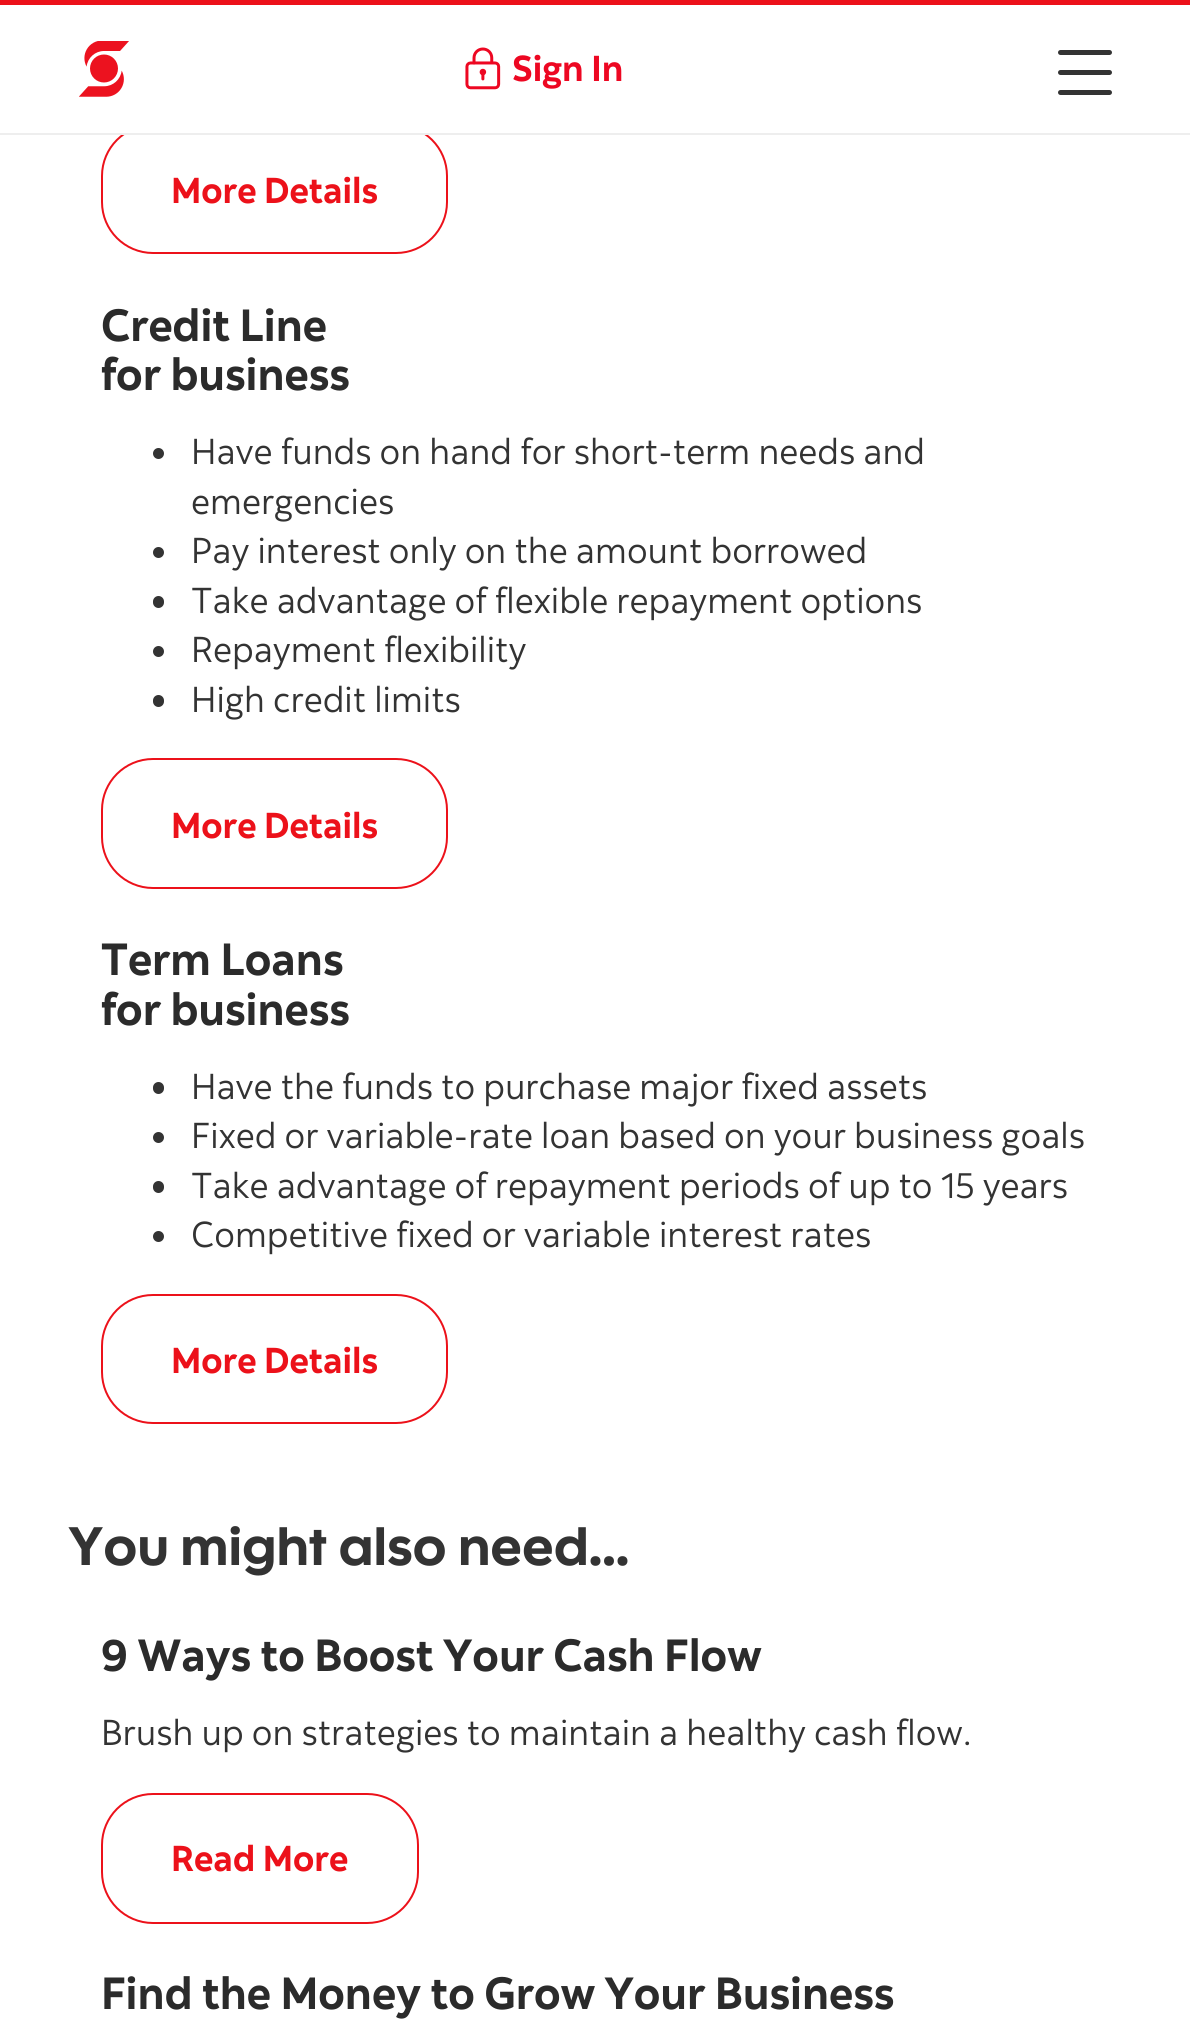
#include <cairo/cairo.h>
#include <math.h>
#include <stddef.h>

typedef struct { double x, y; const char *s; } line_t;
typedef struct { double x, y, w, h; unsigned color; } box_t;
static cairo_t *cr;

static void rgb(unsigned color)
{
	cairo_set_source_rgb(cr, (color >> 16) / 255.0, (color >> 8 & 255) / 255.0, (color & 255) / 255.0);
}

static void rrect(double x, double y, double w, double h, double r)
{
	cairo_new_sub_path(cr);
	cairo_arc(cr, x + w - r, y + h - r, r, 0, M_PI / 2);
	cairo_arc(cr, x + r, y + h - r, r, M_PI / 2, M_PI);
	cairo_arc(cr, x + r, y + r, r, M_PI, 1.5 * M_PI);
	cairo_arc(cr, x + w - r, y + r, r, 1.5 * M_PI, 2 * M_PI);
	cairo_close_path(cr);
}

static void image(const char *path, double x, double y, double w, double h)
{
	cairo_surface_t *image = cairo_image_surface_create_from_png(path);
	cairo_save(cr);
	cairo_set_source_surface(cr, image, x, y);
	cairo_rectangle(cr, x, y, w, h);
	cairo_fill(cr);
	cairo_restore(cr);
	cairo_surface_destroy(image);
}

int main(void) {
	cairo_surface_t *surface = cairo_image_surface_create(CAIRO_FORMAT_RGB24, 1190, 2022);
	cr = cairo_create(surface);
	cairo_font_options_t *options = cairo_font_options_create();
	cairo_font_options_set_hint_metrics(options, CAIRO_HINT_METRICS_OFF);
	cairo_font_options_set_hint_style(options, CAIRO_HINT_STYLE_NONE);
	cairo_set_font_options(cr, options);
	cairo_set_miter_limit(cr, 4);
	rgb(0xffffff);
	cairo_paint(cr);
	rrect(102, 125, 345, 128, 51);
	rgb(0xec111a);
	cairo_stroke(cr);
	{
		static const box_t items[] = {
			{123, 124, 303, 9, 0xffffff},
			{0, 0, 1190, 5, 0xec111a},
			{0, 133, 1190, 2, 0xeeeeee},
		};
		for (size_t i = 0; i < sizeof items / sizeof *items; i++) {
			rgb(items[i].color);
			cairo_rectangle(cr, items[i].x, items[i].y, items[i].w, items[i].h);
			cairo_fill(cr);
		}
	}
	image("img/1.png", 79, 41, 50, 56);
	image("img/2.png", 465, 47, 36, 43);
	rgb(0x333333);
	rrect(1058, 70, 54, 5, 2.5);
	cairo_fill(cr);
	rrect(1058, 50, 54, 5, 2.5);
	cairo_fill(cr);
	rrect(1058, 90, 54, 5, 2.5);
	cairo_fill(cr);
	cairo_arc(cr, 158.5, 453.5, 5.5, 0, 2 * M_PI);
	cairo_fill(cr);
	cairo_arc(cr, 158.5, 552.5, 5.5, 0, 2 * M_PI);
	cairo_fill(cr);
	rrect(153, 596, 11, 12, 5.5);
	cairo_fill(cr);
	cairo_arc(cr, 158.5, 651.5, 5.5, 0, 2 * M_PI);
	cairo_fill(cr);
	rrect(153, 695, 11, 12, 5.5);
	cairo_fill(cr);
	rrect(102, 759, 345, 129, 51);
	rgb(0xec111a);
	cairo_stroke(cr);
	rgb(0x333333);
	rrect(153, 1082, 11, 12, 5.5);
	cairo_fill(cr);
	cairo_arc(cr, 158.5, 1137.5, 5.5, 0, 2 * M_PI);
	cairo_fill(cr);
	rrect(153, 1181, 11, 12, 5.5);
	cairo_fill(cr);
	cairo_arc(cr, 158.5, 1236.5, 5.5, 0, 2 * M_PI);
	cairo_fill(cr);
	rrect(102, 1295, 345, 128, 51);
	rgb(0xec111a);
	cairo_stroke(cr);
	rrect(102, 1794, 316, 129, 51);
	cairo_stroke(cr);
	cairo_select_font_face(cr, "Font", CAIRO_FONT_SLANT_NORMAL, CAIRO_FONT_WEIGHT_BOLD);
	cairo_set_font_size(cr, 36);
	rgb(0xed0722);
	cairo_move_to(cr, 512, 81);
	cairo_show_text(cr, "Sign In");
	rgb(0xec111a);
	cairo_move_to(cr, 171, 203);
	cairo_show_text(cr, "More Details");
	cairo_set_font_size(cr, 45);
	rgb(0x2b2b2b);
	cairo_move_to(cr, 101, 341);
	cairo_show_text(cr, "Credit Line");
	cairo_move_to(cr, 101, 390);
	cairo_show_text(cr, "for business");
	cairo_select_font_face(cr, "Font", CAIRO_FONT_SLANT_NORMAL, CAIRO_FONT_WEIGHT_NORMAL);
	cairo_set_font_size(cr, 36);
	rgb(0x333333);
	{
		static const line_t items[] = {
			{191, 464, "Have funds on hand for short-term needs and"},
			{191, 514, "emergencies"},
			{191, 563, "Pay interest only on the amount borrowed"},
			{191, 613, "Take advantage of flexible repayment options"},
			{191, 662, "Repayment flexibility"},
			{191, 712, "High credit limits"},
		};
		for (size_t i = 0; i < sizeof items / sizeof *items; i++) {
			cairo_move_to(cr, items[i].x, items[i].y);
			cairo_show_text(cr, items[i].s);
		}
	}
	cairo_select_font_face(cr, "Font", CAIRO_FONT_SLANT_NORMAL, CAIRO_FONT_WEIGHT_BOLD);
	rgb(0xec111a);
	cairo_move_to(cr, 171, 838);
	cairo_show_text(cr, "More Details");
	cairo_set_font_size(cr, 45);
	rgb(0x2b2b2b);
	cairo_move_to(cr, 101, 975);
	cairo_show_text(cr, "Term Loans");
	cairo_move_to(cr, 101, 1025);
	cairo_show_text(cr, "for business");
	cairo_select_font_face(cr, "Font", CAIRO_FONT_SLANT_NORMAL, CAIRO_FONT_WEIGHT_NORMAL);
	cairo_set_font_size(cr, 36);
	rgb(0x333333);
	{
		static const line_t items[] = {
			{191, 1099, "Have the funds to purchase major fixed assets"},
			{191, 1148, "Fixed or variable-rate loan based on your business goals"},
			{191, 1198, "Take advantage of repayment periods of up to 15 years"},
			{191, 1247, "Competitive fixed or variable interest rates"},
		};
		for (size_t i = 0; i < sizeof items / sizeof *items; i++) {
			cairo_move_to(cr, items[i].x, items[i].y);
			cairo_show_text(cr, items[i].s);
		}
	}
	cairo_select_font_face(cr, "Font", CAIRO_FONT_SLANT_NORMAL, CAIRO_FONT_WEIGHT_BOLD);
	rgb(0xec111a);
	cairo_move_to(cr, 171, 1373);
	cairo_show_text(cr, "More Details");
	cairo_select_font_face(cr, "Font ExtraBold", CAIRO_FONT_SLANT_NORMAL, CAIRO_FONT_WEIGHT_NORMAL);
	cairo_set_font_size(cr, 54);
	rgb(0x333333);
	cairo_move_to(cr, 68, 1565);
	cairo_show_text(cr, "You might also need...");
	cairo_select_font_face(cr, "Font", CAIRO_FONT_SLANT_NORMAL, CAIRO_FONT_WEIGHT_BOLD);
	cairo_set_font_size(cr, 45);
	rgb(0x2b2b2b);
	cairo_move_to(cr, 101, 1671);
	cairo_show_text(cr, "9 Ways to Boost Your Cash Flow");
	cairo_select_font_face(cr, "Font", CAIRO_FONT_SLANT_NORMAL, CAIRO_FONT_WEIGHT_NORMAL);
	cairo_set_font_size(cr, 36);
	rgb(0x333333);
	cairo_move_to(cr, 101, 1745);
	cairo_show_text(cr, "Brush up on strategies to maintain a healthy cash flow.");
	cairo_select_font_face(cr, "Font", CAIRO_FONT_SLANT_NORMAL, CAIRO_FONT_WEIGHT_BOLD);
	rgb(0xec111a);
	cairo_move_to(cr, 171, 1871);
	cairo_show_text(cr, "Read More");
	cairo_set_font_size(cr, 45);
	rgb(0x2b2b2b);
	cairo_move_to(cr, 101, 2009);
	cairo_show_text(cr, "Find the Money to Grow Your Business");
	cairo_surface_write_to_png(surface, "page.png");
	cairo_font_options_destroy(options);
	cairo_destroy(cr);
	cairo_surface_destroy(surface);
	return 0;
}
